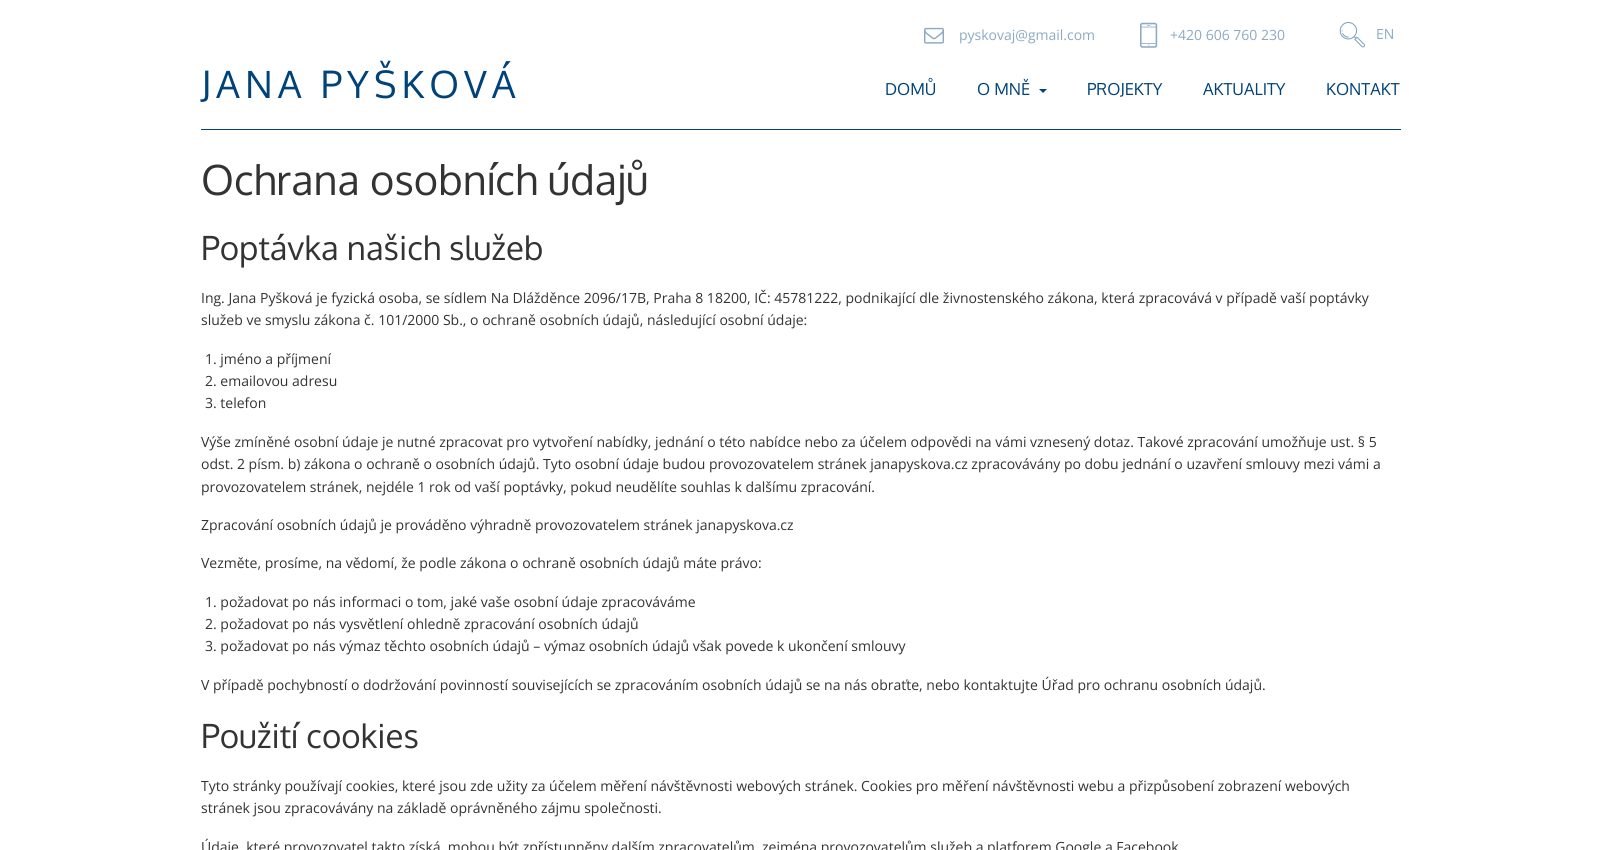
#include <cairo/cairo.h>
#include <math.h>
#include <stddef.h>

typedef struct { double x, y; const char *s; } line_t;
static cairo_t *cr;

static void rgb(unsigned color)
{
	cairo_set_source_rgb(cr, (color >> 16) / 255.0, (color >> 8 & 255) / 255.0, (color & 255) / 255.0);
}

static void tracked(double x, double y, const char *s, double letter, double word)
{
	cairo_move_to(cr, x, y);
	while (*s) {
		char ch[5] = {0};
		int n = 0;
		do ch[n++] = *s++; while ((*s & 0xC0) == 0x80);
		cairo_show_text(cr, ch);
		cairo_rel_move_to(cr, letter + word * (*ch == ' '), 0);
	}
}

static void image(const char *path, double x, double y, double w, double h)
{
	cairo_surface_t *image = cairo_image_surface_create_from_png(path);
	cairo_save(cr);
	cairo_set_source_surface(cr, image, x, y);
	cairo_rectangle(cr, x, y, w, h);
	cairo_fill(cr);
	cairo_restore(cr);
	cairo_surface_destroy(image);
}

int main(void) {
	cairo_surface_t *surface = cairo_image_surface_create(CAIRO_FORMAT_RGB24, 1601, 850);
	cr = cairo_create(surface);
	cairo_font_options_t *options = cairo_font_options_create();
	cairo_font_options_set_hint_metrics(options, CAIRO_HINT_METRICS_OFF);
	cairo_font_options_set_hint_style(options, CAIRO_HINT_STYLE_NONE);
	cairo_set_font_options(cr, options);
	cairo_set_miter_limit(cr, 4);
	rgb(0xffffff);
	cairo_paint(cr);
	image("img/1.png", 924, 27, 20, 17);
	image("img/2.png", 1140, 22, 18, 26);
	image("img/3.png", 1339, 22, 26, 26);
	rgb(0x00427a);
	cairo_new_path(cr);
	cairo_move_to(cr, 1039, 89);
	cairo_line_to(cr, 1047, 89);
	cairo_line_to(cr, 1043, 93);
	cairo_close_path(cr);
	cairo_fill(cr);
	cairo_rectangle(cr, 201, 129, 1200, 1);
	cairo_fill(cr);
	cairo_select_font_face(cr, "Oxygen", CAIRO_FONT_SLANT_NORMAL, CAIRO_FONT_WEIGHT_NORMAL);
	cairo_set_font_size(cr, 37.5);
	tracked(201, 98, "JANA PYŠKOVÁ", 5, 0);
	cairo_select_font_face(cr, "Open Sans", CAIRO_FONT_SLANT_NORMAL, CAIRO_FONT_WEIGHT_NORMAL);
	cairo_set_font_size(cr, 14);
	rgb(0x8caac3);
	{
		static const line_t items[] = {
			{959, 40, "pyskovaj@gmail.com"},
			{1170, 40, "+420 606 760 230"},
			{1376, 39, "EN"},
		};
		for (size_t i = 0; i < sizeof items / sizeof *items; i++) {
			cairo_move_to(cr, items[i].x, items[i].y);
			cairo_show_text(cr, items[i].s);
		}
	}
	cairo_select_font_face(cr, "Oxygen", CAIRO_FONT_SLANT_NORMAL, CAIRO_FONT_WEIGHT_NORMAL);
	cairo_set_font_size(cr, 16.5);
	rgb(0x00427a);
	{
		static const line_t items[] = {
			{885, 95, "DOMŮ"},
			{977, 95, "O MNĚ"},
			{1087, 95, "PROJEKTY"},
			{1203, 95, "AKTUALITY"},
			{1326, 95, "KONTAKT"},
		};
		for (size_t i = 0; i < sizeof items / sizeof *items; i++) {
			cairo_move_to(cr, items[i].x, items[i].y);
			cairo_show_text(cr, items[i].s);
		}
	}
	cairo_set_font_size(cr, 41.5);
	rgb(0x333333);
	cairo_move_to(cr, 201, 195);
	cairo_show_text(cr, "Ochrana osobních údajů");
	cairo_set_font_size(cr, 33);
	cairo_move_to(cr, 201, 260);
	cairo_show_text(cr, "Poptávka našich služeb");
	cairo_select_font_face(cr, "Open Sans", CAIRO_FONT_SLANT_NORMAL, CAIRO_FONT_WEIGHT_NORMAL);
	cairo_set_font_size(cr, 14);
	{
		static const line_t items[] = {
			{201, 303, "Ing. Jana Pyšková je fyzická osoba, se sídlem Na Dlážděnce 2096/17B, Praha 8 18200, IČ: 45781222, podnikající dle živnostenského zákona, která zpracovává v případě vaší poptávky"},
			{201, 325, "služeb ve smyslu zákona č. 101/2000 Sb., o ochraně osobních údajů, následující osobní údaje:"},
			{205, 364, "1. jméno a příjmení"},
			{205, 386, "2. emailovou adresu"},
			{205, 408, "3. telefon"},
			{201, 447, "Výše zmíněné osobní údaje je nutné zpracovat pro vytvoření nabídky, jednání o této nabídce nebo za účelem odpovědi na vámi vznesený dotaz. Takové zpracování umožňuje ust. § 5"},
			{201, 469, "odst. 2 písm. b) zákona o ochraně o osobních údajů. Tyto osobní údaje budou provozovatelem stránek janapyskova.cz zpracovávány po dobu jednání o uzavření smlouvy mezi vámi a"},
			{201, 492, "provozovatelem stránek, nejdéle 1 rok od vaší poptávky, pokud neudělíte souhlas k dalšímu zpracování."},
			{201, 530, "Zpracování osobních údajů je prováděno výhradně provozovatelem stránek janapyskova.cz"},
			{201, 568, "Vezměte, prosíme, na vědomí, že podle zákona o ochraně osobních údajů máte právo:"},
			{205, 607, "1. požadovat po nás informaci o tom, jaké vaše osobní údaje zpracováváme"},
			{205, 629, "2. požadovat po nás vysvětlení ohledně zpracování osobních údajů"},
			{205, 651, "3. požadovat po nás výmaz těchto osobních údajů – výmaz osobních údajů však povede k ukončení smlouvy"},
			{201, 690, "V případě pochybností o dodržování povinností souvisejících se zpracováním osobních údajů se na nás obraťte, nebo kontaktujte Úřad pro ochranu osobních údajů."},
		};
		for (size_t i = 0; i < sizeof items / sizeof *items; i++) {
			cairo_move_to(cr, items[i].x, items[i].y);
			cairo_show_text(cr, items[i].s);
		}
	}
	cairo_select_font_face(cr, "Oxygen", CAIRO_FONT_SLANT_NORMAL, CAIRO_FONT_WEIGHT_NORMAL);
	cairo_set_font_size(cr, 33);
	cairo_move_to(cr, 201, 748);
	cairo_show_text(cr, "Použití cookies");
	cairo_select_font_face(cr, "Open Sans", CAIRO_FONT_SLANT_NORMAL, CAIRO_FONT_WEIGHT_NORMAL);
	cairo_set_font_size(cr, 14);
	{
		static const line_t items[] = {
			{201, 791, "Tyto stránky používají cookies, které jsou zde užity za účelem měření návštěvnosti webových stránek. Cookies pro měření návštěvnosti webu a přizpůsobení zobrazení webových"},
			{201, 813, "stránek jsou zpracovávány na základě oprávněného zájmu společnosti."},
			{201, 852, "Údaje, které provozovatel takto získá, mohou být zpřístupněny dalším zpracovatelům, zejména provozovatelům služeb a platforem Google a Facebook"},
		};
		for (size_t i = 0; i < sizeof items / sizeof *items; i++) {
			cairo_move_to(cr, items[i].x, items[i].y);
			cairo_show_text(cr, items[i].s);
		}
	}
	cairo_surface_write_to_png(surface, "page.png");
	cairo_font_options_destroy(options);
	cairo_destroy(cr);
	cairo_surface_destroy(surface);
	return 0;
}
